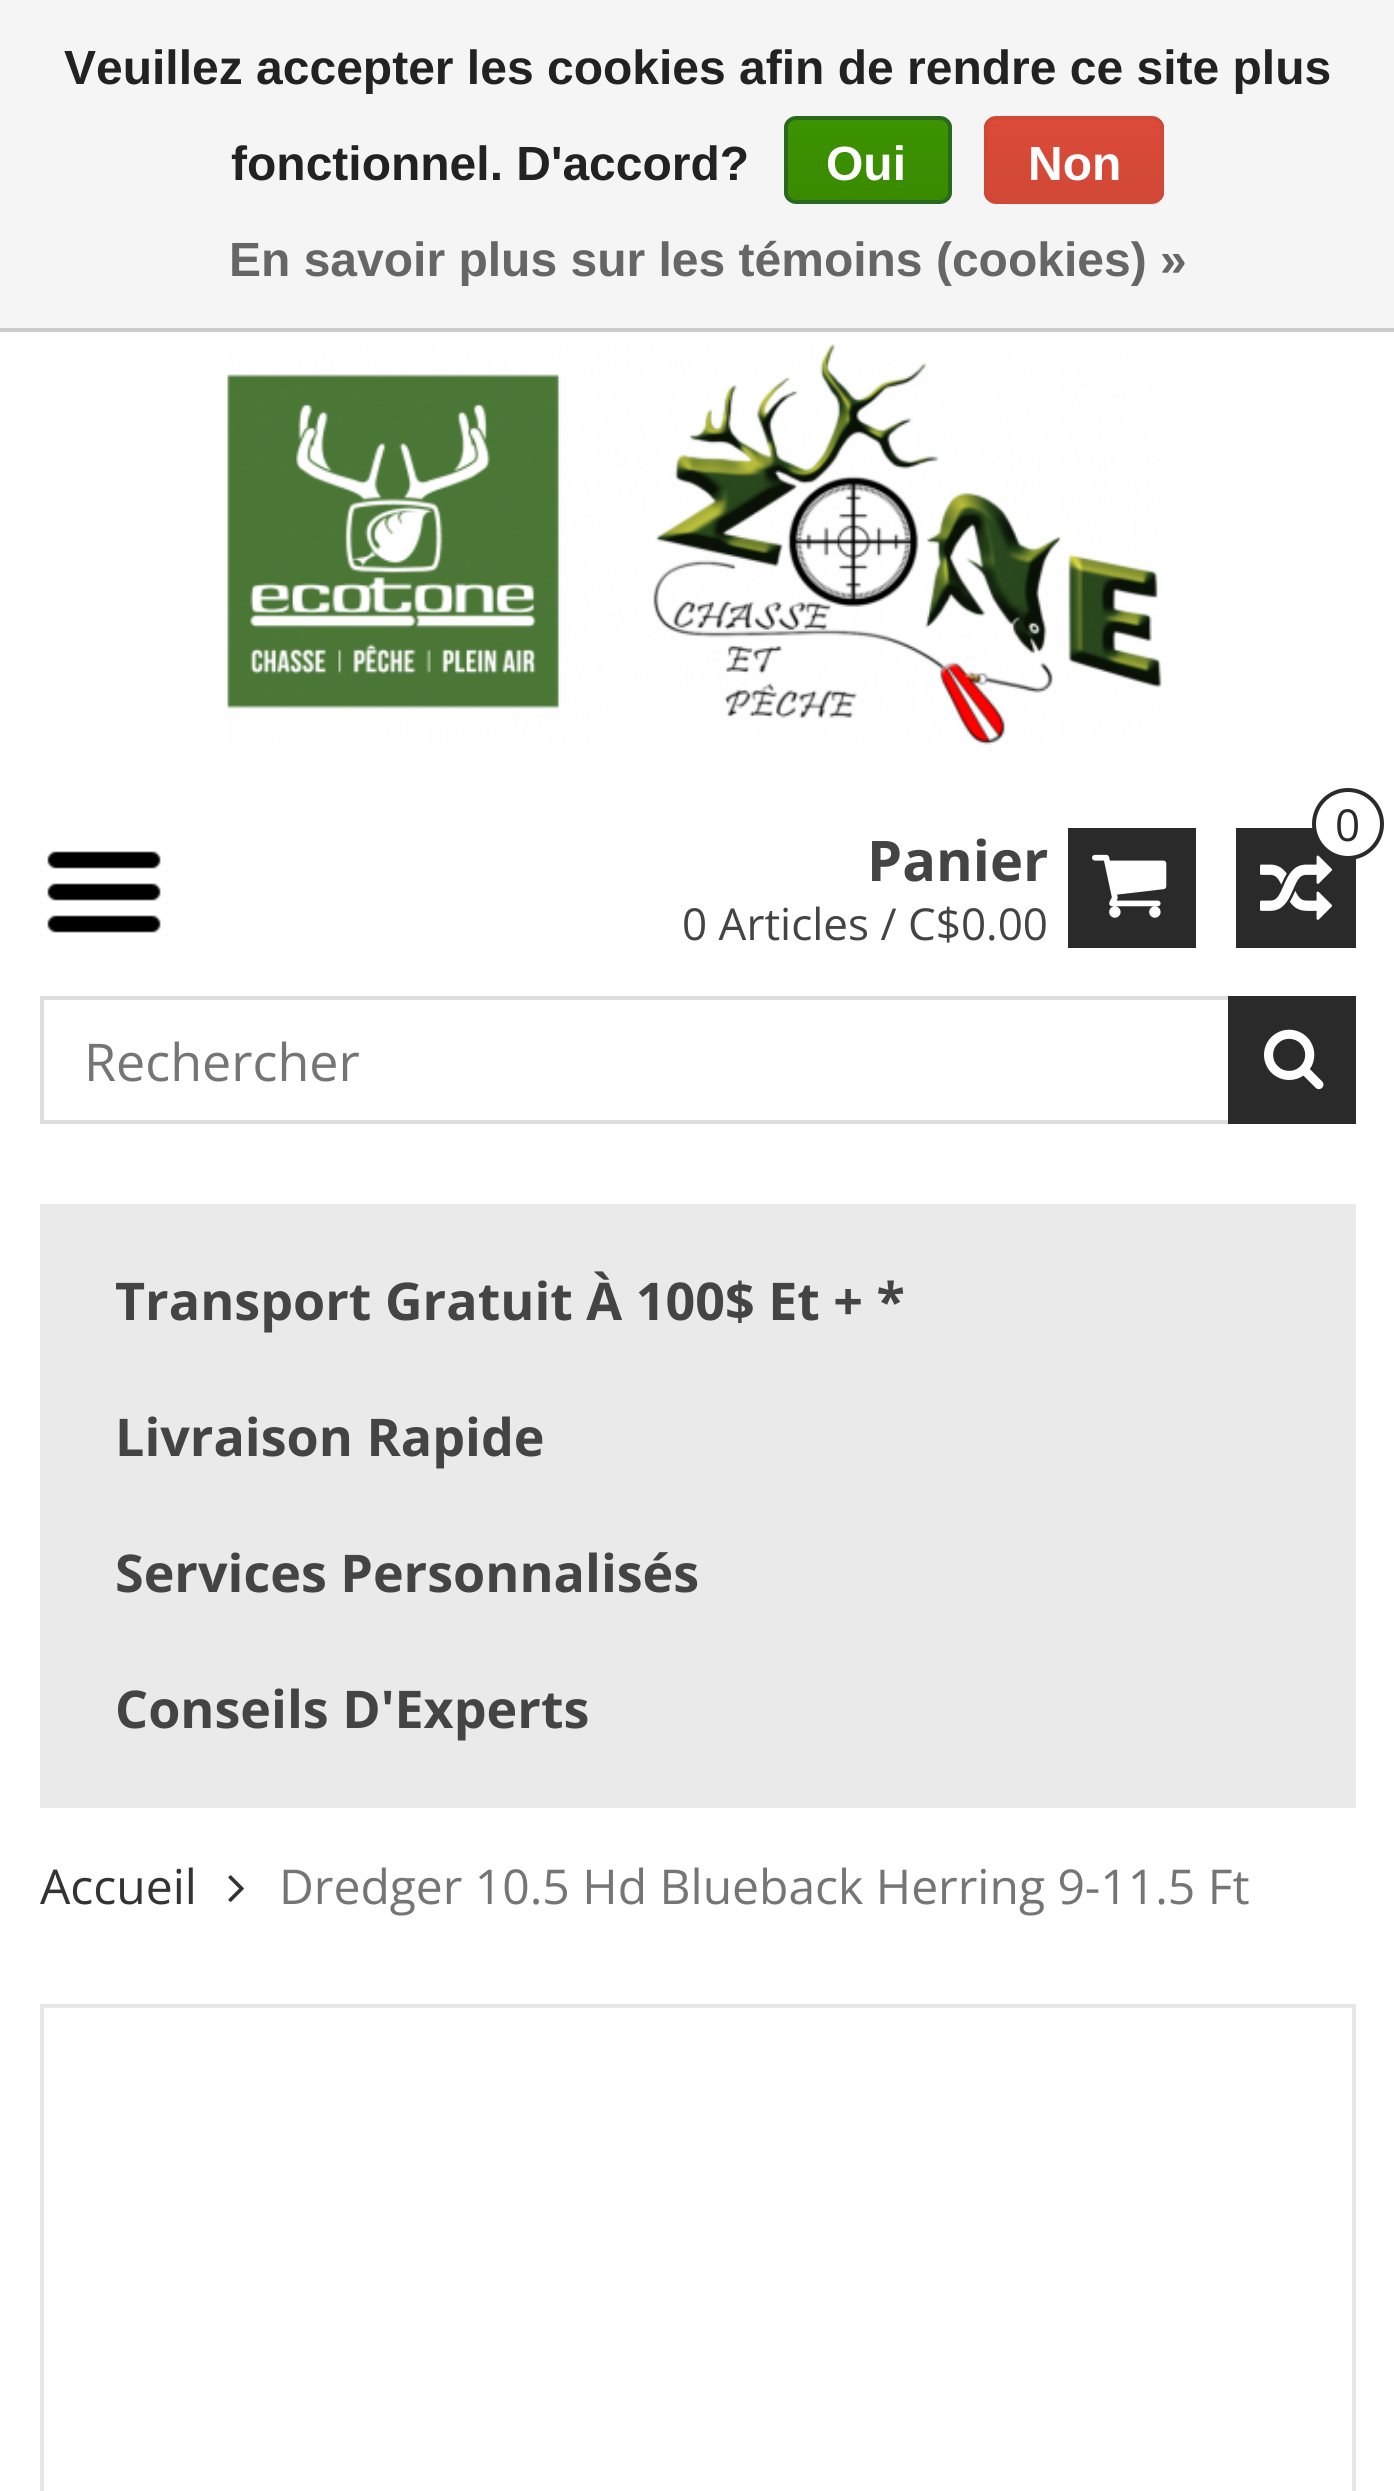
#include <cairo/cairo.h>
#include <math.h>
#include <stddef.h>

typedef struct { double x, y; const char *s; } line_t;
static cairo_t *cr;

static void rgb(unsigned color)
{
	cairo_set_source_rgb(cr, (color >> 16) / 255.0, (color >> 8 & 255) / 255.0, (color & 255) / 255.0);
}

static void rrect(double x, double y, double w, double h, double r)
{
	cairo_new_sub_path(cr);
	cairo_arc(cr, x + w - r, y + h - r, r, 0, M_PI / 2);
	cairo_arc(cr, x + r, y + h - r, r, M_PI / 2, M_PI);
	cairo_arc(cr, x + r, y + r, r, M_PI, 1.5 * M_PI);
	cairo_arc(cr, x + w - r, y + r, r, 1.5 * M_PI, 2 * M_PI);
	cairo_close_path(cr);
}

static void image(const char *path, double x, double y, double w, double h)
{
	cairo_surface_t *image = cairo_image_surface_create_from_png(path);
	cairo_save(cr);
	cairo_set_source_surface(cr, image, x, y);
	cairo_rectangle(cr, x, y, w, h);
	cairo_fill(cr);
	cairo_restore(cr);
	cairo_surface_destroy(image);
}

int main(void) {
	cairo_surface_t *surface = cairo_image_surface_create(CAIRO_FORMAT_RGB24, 1394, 2491);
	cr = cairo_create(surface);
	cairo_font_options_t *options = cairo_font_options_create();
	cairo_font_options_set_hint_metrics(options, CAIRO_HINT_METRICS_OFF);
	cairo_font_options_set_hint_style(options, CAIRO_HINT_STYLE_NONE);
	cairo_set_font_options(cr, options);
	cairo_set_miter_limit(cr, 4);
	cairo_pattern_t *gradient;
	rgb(0xffffff);
	cairo_paint(cr);
	rgb(0xf5f5f5);
	cairo_rectangle(cr, 0, 0, 1394, 328);
	cairo_fill(cr);
	rgb(0xcccccc);
	cairo_rectangle(cr, 0, 328, 1394, 4);
	cairo_fill(cr);
	cairo_save(cr);
	rrect(784, 116, 168, 88, 12);
	cairo_clip(cr);
	gradient = cairo_pattern_create_linear(868, 120, 868, 200);
	cairo_pattern_add_color_stop_rgba(gradient, 0, 0.235, 0.576, 0, 1);
	cairo_pattern_add_color_stop_rgba(gradient, 1, 0.224, 0.541, 0, 1);
	cairo_set_source(cr, gradient);
	cairo_pattern_destroy(gradient);
	cairo_rectangle(cr, 784, 120, 168, 80);
	cairo_fill(cr);
	cairo_restore(cr);
	rrect(786, 118, 164, 84, 10);
	rgb(0x29691d);
	cairo_set_line_width(cr, 4);
	cairo_stroke(cr);
	cairo_save(cr);
	rrect(984, 116, 180, 88, 12);
	cairo_clip(cr);
	gradient = cairo_pattern_create_linear(1074, 120, 1074, 200);
	cairo_pattern_add_color_stop_rgba(gradient, 0, 0.863, 0.29, 0.22, 1);
	cairo_pattern_add_color_stop_rgba(gradient, 1, 0.82, 0.282, 0.212, 1);
	cairo_set_source(cr, gradient);
	cairo_pattern_destroy(gradient);
	cairo_rectangle(cr, 984, 120, 180, 80);
	cairo_fill(cr);
	cairo_restore(cr);
	rrect(986, 118, 176, 84, 10);
	rgb(0xd14836);
	cairo_stroke(cr);
	image("img/1.png", 227, 344, 935, 401);
	rgb(0x2a2a2a);
	cairo_rectangle(cr, 1236, 828, 120, 120);
	cairo_fill(cr);
	image("img/2.png", 1260, 855, 72, 65);
	rgb(0xffffff);
	cairo_arc(cr, 1348, 824, 34, 0, 2 * M_PI);
	cairo_fill_preserve(cr);
	rgb(0x2a2a2a);
	cairo_stroke(cr);
	image("img/3.png", 47, 851, 114, 82);
	cairo_rectangle(cr, 1068, 828, 128, 120);
	cairo_fill(cr);
	image("img/4.png", 1092, 854, 75, 64);
	cairo_rectangle(cr, 42, 998, 1312, 124);
	rgb(0xdddddd);
	cairo_stroke(cr);
	rgb(0x2a2a2a);
	cairo_rectangle(cr, 1228, 996, 128, 128);
	cairo_fill(cr);
	image("img/5.png", 1264, 1029, 60, 61);
	rgb(0xeaeaea);
	cairo_rectangle(cr, 40, 1204, 1316, 604);
	cairo_fill(cr);
	image("img/6.png", 228, 1875, 16, 27);
	cairo_rectangle(cr, 42, 2006, 1312, 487);
	rgb(0xe7e7e7);
	cairo_stroke(cr);
	cairo_select_font_face(cr, "Liberation Sans", CAIRO_FONT_SLANT_NORMAL, CAIRO_FONT_WEIGHT_BOLD);
	cairo_set_font_size(cr, 48);
	rgb(0x222222);
	cairo_move_to(cr, 64, 84);
	cairo_show_text(cr, "Veuillez accepter les cookies afin de rendre ce site plus");
	cairo_move_to(cr, 231, 180);
	cairo_show_text(cr, "fonctionnel. D'accord?");
	rgb(0xffffff);
	cairo_move_to(cr, 826, 180);
	cairo_show_text(cr, "Oui");
	cairo_move_to(cr, 1028, 180);
	cairo_show_text(cr, "Non");
	rgb(0x666666);
	cairo_move_to(cr, 229, 276);
	cairo_show_text(cr, "En savoir plus sur les témoins (cookies) »");
	cairo_select_font_face(cr, "Open Sans", CAIRO_FONT_SLANT_NORMAL, CAIRO_FONT_WEIGHT_NORMAL);
	cairo_set_font_size(cr, 44);
	rgb(0x2a2a2a);
	cairo_move_to(cr, 1335, 841);
	cairo_show_text(cr, "0");
	cairo_select_font_face(cr, "Open Sans", CAIRO_FONT_SLANT_NORMAL, CAIRO_FONT_WEIGHT_BOLD);
	cairo_set_font_size(cr, 56);
	rgb(0x444444);
	cairo_move_to(cr, 867, 881);
	cairo_show_text(cr, "Panier");
	cairo_select_font_face(cr, "Open Sans", CAIRO_FONT_SLANT_NORMAL, CAIRO_FONT_WEIGHT_NORMAL);
	cairo_set_font_size(cr, 44);
	cairo_move_to(cr, 682, 940);
	cairo_show_text(cr, "0 Articles / C$0.00");
	cairo_set_font_size(cr, 52);
	rgb(0x757575);
	cairo_move_to(cr, 84, 1081);
	cairo_show_text(cr, "Rechercher");
	cairo_select_font_face(cr, "Open Sans", CAIRO_FONT_SLANT_NORMAL, CAIRO_FONT_WEIGHT_BOLD);
	rgb(0x444444);
	{
		static const line_t items[] = {
			{115, 1320, "Transport Gratuit À 100$ Et + *"},
			{115, 1456, "Livraison Rapide"},
			{115, 1592, "Services Personnalisés"},
			{115, 1728, "Conseils D'Experts"},
		};
		for (size_t i = 0; i < sizeof items / sizeof *items; i++) {
			cairo_move_to(cr, items[i].x, items[i].y);
			cairo_show_text(cr, items[i].s);
		}
	}
	cairo_select_font_face(cr, "Open Sans", CAIRO_FONT_SLANT_NORMAL, CAIRO_FONT_WEIGHT_NORMAL);
	cairo_set_font_size(cr, 48);
	rgb(0x333333);
	cairo_move_to(cr, 40, 1904);
	cairo_show_text(cr, "Accueil");
	rgb(0x757575);
	cairo_move_to(cr, 279, 1904);
	cairo_show_text(cr, "Dredger 10.5 Hd Blueback Herring 9-11.5 Ft");
	cairo_surface_write_to_png(surface, "page.png");
	cairo_font_options_destroy(options);
	cairo_destroy(cr);
	cairo_surface_destroy(surface);
	return 0;
}
